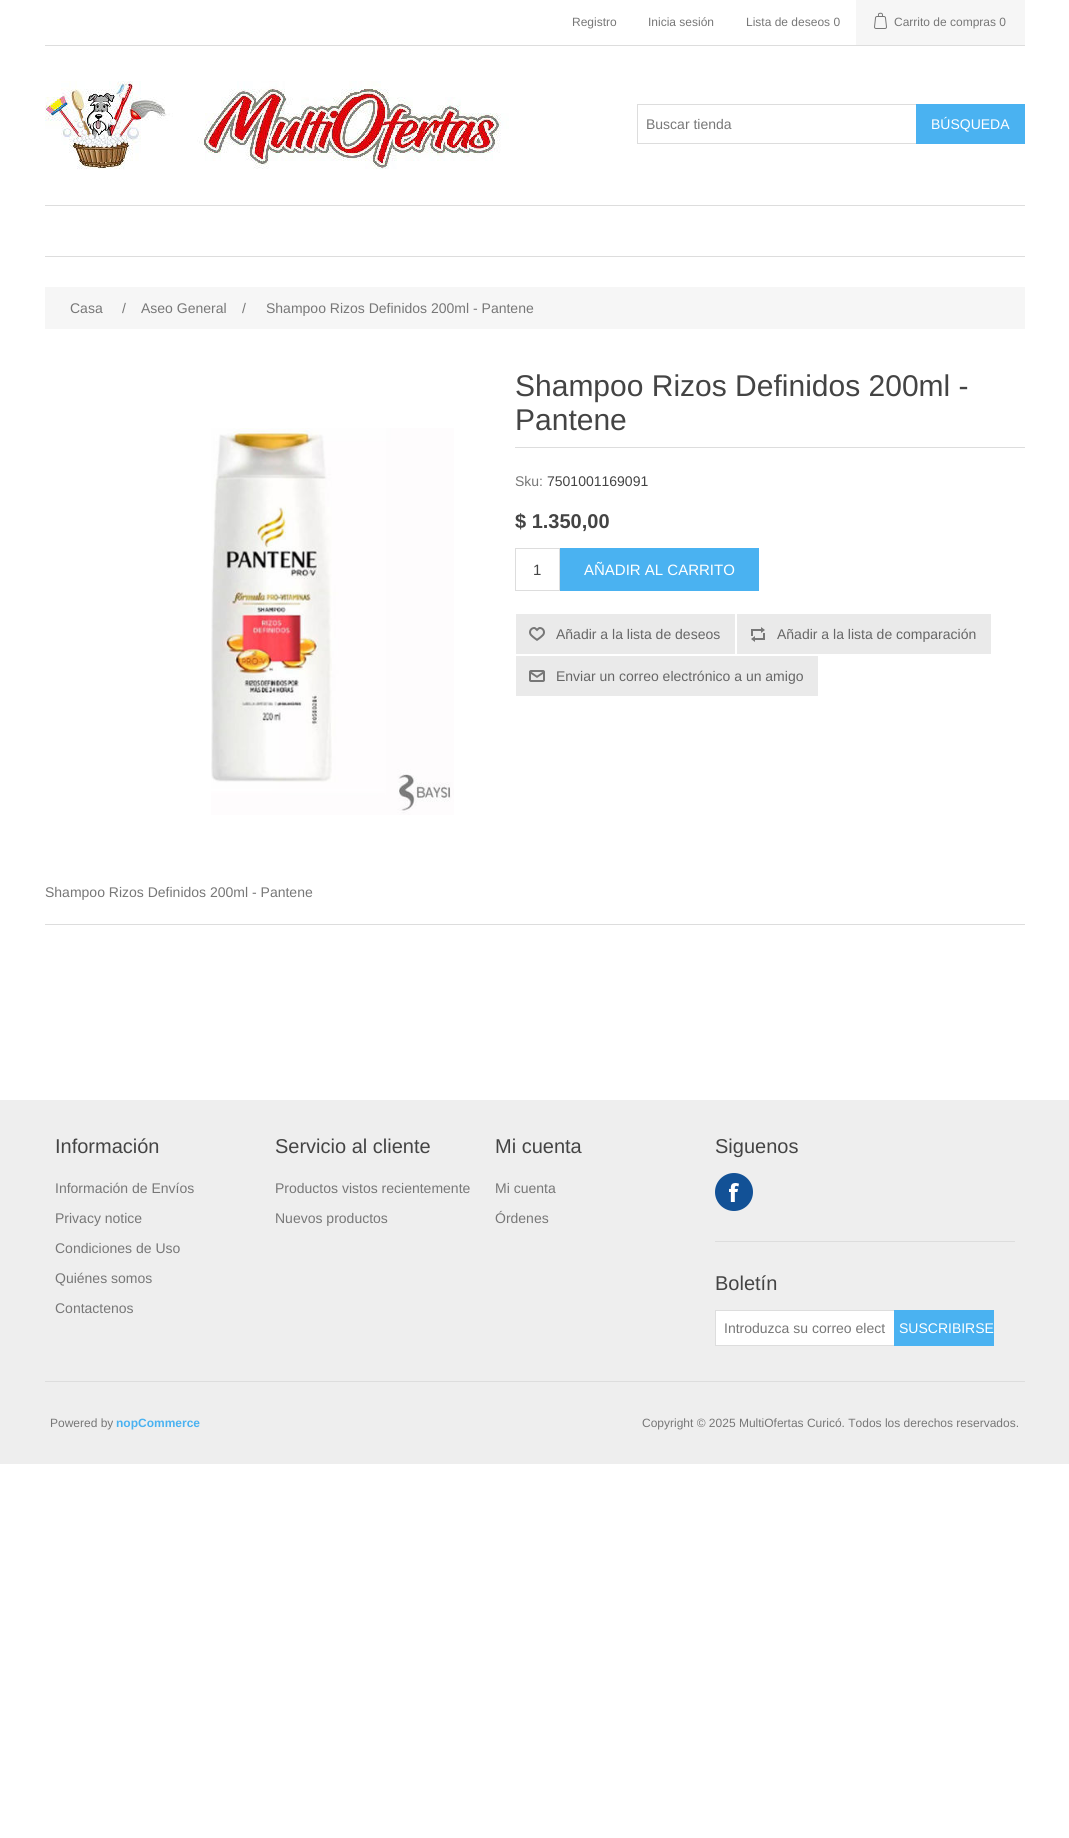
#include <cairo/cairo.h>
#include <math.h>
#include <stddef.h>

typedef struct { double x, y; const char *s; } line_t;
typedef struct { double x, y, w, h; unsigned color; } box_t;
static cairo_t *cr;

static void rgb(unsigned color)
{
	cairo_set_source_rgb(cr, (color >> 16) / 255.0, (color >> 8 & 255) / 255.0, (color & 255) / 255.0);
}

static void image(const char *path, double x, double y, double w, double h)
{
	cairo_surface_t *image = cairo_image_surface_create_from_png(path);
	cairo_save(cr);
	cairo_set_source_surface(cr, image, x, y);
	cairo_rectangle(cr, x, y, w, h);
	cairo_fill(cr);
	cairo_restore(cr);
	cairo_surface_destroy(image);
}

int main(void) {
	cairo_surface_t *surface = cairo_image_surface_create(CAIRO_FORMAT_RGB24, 1069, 1838);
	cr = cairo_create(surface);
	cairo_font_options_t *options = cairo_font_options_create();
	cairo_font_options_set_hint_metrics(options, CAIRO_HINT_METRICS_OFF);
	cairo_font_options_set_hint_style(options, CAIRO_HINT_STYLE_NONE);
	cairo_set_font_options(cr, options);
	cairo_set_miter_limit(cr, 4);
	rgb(0xffffff);
	cairo_paint(cr);
	rgb(0xdddddd);
	cairo_rectangle(cr, 45, 45, 980, 1);
	cairo_fill(cr);
	rgb(0xf6f6f6);
	cairo_rectangle(cr, 856, 0, 169, 45);
	cairo_fill(cr);
	image("img/1.png", 874, 12, 13, 17);
	image("img/2.png", 45, 81, 464, 89);
	cairo_rectangle(cr, 637.5, 104.5, 279, 39);
	rgb(0xdddddd);
	cairo_set_line_width(cr, 1);
	cairo_stroke(cr);
	{
		static const box_t items[] = {
			{916, 104, 109, 40, 0x4ab2f1},
			{45, 205, 980, 1, 0xdddddd},
			{45, 256, 980, 1, 0xdddddd},
			{45, 287, 980, 42, 0xf6f6f6},
			{45, 924, 980, 1, 0xdddddd},
		};
		for (size_t i = 0; i < sizeof items / sizeof *items; i++) {
			rgb(items[i].color);
			cairo_rectangle(cr, items[i].x, items[i].y, items[i].w, items[i].h);
			cairo_fill(cr);
		}
	}
	image("img/3.png", 211, 428, 243, 387);
	cairo_rectangle(cr, 515, 447, 510, 1);
	cairo_fill(cr);
	cairo_rectangle(cr, 515.5, 548.5, 44, 42);
	cairo_stroke(cr);
	rgb(0x4ab2f1);
	cairo_rectangle(cr, 560, 548, 199, 43);
	cairo_fill(cr);
	rgb(0xeaeaea);
	cairo_rectangle(cr, 516, 614, 219, 40);
	cairo_fill(cr);
	image("img/4.png", 529, 627, 16, 14);
	cairo_rectangle(cr, 737, 614, 254, 40);
	cairo_fill(cr);
	image("img/5.png", 751, 627, 14, 15);
	cairo_rectangle(cr, 516, 656, 302, 40);
	cairo_fill(cr);
	image("img/6.png", 529, 670, 16, 12);
	{
		static const box_t items[] = {
			{0, 1100, 1069, 364, 0xeeeeee},
			{45, 1381, 980, 1, 0xdddddd},
			{715, 1241, 300, 1, 0xdddddd},
		};
		for (size_t i = 0; i < sizeof items / sizeof *items; i++) {
			rgb(items[i].color);
			cairo_rectangle(cr, items[i].x, items[i].y, items[i].w, items[i].h);
			cairo_fill(cr);
		}
	}
	image("img/7.png", 715, 1173, 38, 38);
	rgb(0xffffff);
	cairo_rectangle(cr, 715.5, 1310.5, 179, 35);
	cairo_fill_preserve(cr);
	rgb(0xdddddd);
	cairo_stroke(cr);
	rgb(0x4ab2f1);
	cairo_rectangle(cr, 894, 1310, 100, 36);
	cairo_fill(cr);
	cairo_select_font_face(cr, "Liberation Sans", CAIRO_FONT_SLANT_NORMAL, CAIRO_FONT_WEIGHT_NORMAL);
	cairo_set_font_size(cr, 12);
	rgb(0x777777);
	{
		static const line_t items[] = {
			{572, 26, "Registro"},
			{648, 26, "Inicia sesión"},
			{746, 26, "Lista de deseos 0"},
			{894, 26, "Carrito de compras 0"},
		};
		for (size_t i = 0; i < sizeof items / sizeof *items; i++) {
			cairo_move_to(cr, items[i].x, items[i].y);
			cairo_show_text(cr, items[i].s);
		}
	}
	cairo_set_font_size(cr, 14);
	cairo_move_to(cr, 646, 129);
	cairo_show_text(cr, "Buscar tienda");
	rgb(0xffffff);
	cairo_move_to(cr, 931, 129);
	cairo_show_text(cr, "BÚSQUEDA");
	rgb(0x777777);
	{
		static const line_t items[] = {
			{70, 313, "Casa"},
			{122, 313, "/"},
			{141, 313, "Aseo General"},
			{242, 313, "/"},
			{266, 313, "Shampoo Rizos Definidos 200ml - Pantene"},
		};
		for (size_t i = 0; i < sizeof items / sizeof *items; i++) {
			cairo_move_to(cr, items[i].x, items[i].y);
			cairo_show_text(cr, items[i].s);
		}
	}
	cairo_set_font_size(cr, 30);
	rgb(0x444444);
	cairo_move_to(cr, 515, 396);
	cairo_show_text(cr, "Shampoo Rizos Definidos 200ml -");
	cairo_move_to(cr, 515, 430);
	cairo_show_text(cr, "Pantene");
	cairo_set_font_size(cr, 14);
	rgb(0x777777);
	cairo_move_to(cr, 515, 486);
	cairo_show_text(cr, "Sku:");
	rgb(0x444444);
	cairo_move_to(cr, 547, 486);
	cairo_show_text(cr, "7501001169091");
	cairo_select_font_face(cr, "Liberation Sans", CAIRO_FONT_SLANT_NORMAL, CAIRO_FONT_WEIGHT_BOLD);
	cairo_set_font_size(cr, 20);
	cairo_move_to(cr, 515, 528);
	cairo_show_text(cr, "$ 1.350,00");
	cairo_select_font_face(cr, "Liberation Sans", CAIRO_FONT_SLANT_NORMAL, CAIRO_FONT_WEIGHT_NORMAL);
	cairo_set_font_size(cr, 15);
	cairo_move_to(cr, 533, 575);
	cairo_show_text(cr, "1");
	rgb(0xffffff);
	cairo_move_to(cr, 584, 575);
	cairo_show_text(cr, "AÑADIR AL CARRITO");
	cairo_set_font_size(cr, 14);
	rgb(0x666666);
	{
		static const line_t items[] = {
			{556, 639, "Añadir a la lista de deseos"},
			{777, 639, "Añadir a la lista de comparación"},
			{556, 681, "Enviar un correo electrónico a un amigo"},
		};
		for (size_t i = 0; i < sizeof items / sizeof *items; i++) {
			cairo_move_to(cr, items[i].x, items[i].y);
			cairo_show_text(cr, items[i].s);
		}
	}
	rgb(0x777777);
	cairo_move_to(cr, 45, 897);
	cairo_show_text(cr, "Shampoo Rizos Definidos 200ml - Pantene");
	cairo_set_font_size(cr, 20);
	rgb(0x444444);
	cairo_move_to(cr, 55, 1153);
	cairo_show_text(cr, "Información");
	cairo_set_font_size(cr, 14);
	rgb(0x777777);
	{
		static const line_t items[] = {
			{55, 1193, "Información de Envíos"},
			{55, 1223, "Privacy notice"},
			{55, 1253, "Condiciones de Uso"},
			{55, 1283, "Quiénes somos"},
			{55, 1313, "Contactenos"},
		};
		for (size_t i = 0; i < sizeof items / sizeof *items; i++) {
			cairo_move_to(cr, items[i].x, items[i].y);
			cairo_show_text(cr, items[i].s);
		}
	}
	cairo_set_font_size(cr, 20);
	rgb(0x444444);
	cairo_move_to(cr, 275, 1153);
	cairo_show_text(cr, "Servicio al cliente");
	cairo_set_font_size(cr, 14);
	rgb(0x777777);
	cairo_move_to(cr, 275, 1193);
	cairo_show_text(cr, "Productos vistos recientemente");
	cairo_move_to(cr, 275, 1223);
	cairo_show_text(cr, "Nuevos productos");
	cairo_set_font_size(cr, 20);
	rgb(0x444444);
	cairo_move_to(cr, 495, 1153);
	cairo_show_text(cr, "Mi cuenta");
	cairo_set_font_size(cr, 14);
	rgb(0x777777);
	cairo_move_to(cr, 495, 1193);
	cairo_show_text(cr, "Mi cuenta");
	cairo_move_to(cr, 495, 1223);
	cairo_show_text(cr, "Órdenes");
	cairo_set_font_size(cr, 20);
	rgb(0x444444);
	cairo_move_to(cr, 715, 1153);
	cairo_show_text(cr, "Siguenos");
	cairo_move_to(cr, 715, 1290);
	cairo_show_text(cr, "Boletín");
	cairo_set_font_size(cr, 14);
	rgb(0x777777);
	cairo_move_to(cr, 724, 1333);
	cairo_show_text(cr, "Introduzca su correo elect");
	rgb(0xffffff);
	cairo_move_to(cr, 899, 1333);
	cairo_show_text(cr, "SUSCRIBIRSE");
	cairo_set_font_size(cr, 12);
	rgb(0x777777);
	cairo_move_to(cr, 50, 1427);
	cairo_show_text(cr, "Powered by");
	cairo_select_font_face(cr, "Liberation Sans", CAIRO_FONT_SLANT_NORMAL, CAIRO_FONT_WEIGHT_BOLD);
	rgb(0x4ab2f1);
	cairo_move_to(cr, 116, 1427);
	cairo_show_text(cr, "nopCommerce");
	cairo_select_font_face(cr, "Liberation Sans", CAIRO_FONT_SLANT_NORMAL, CAIRO_FONT_WEIGHT_NORMAL);
	rgb(0x777777);
	cairo_move_to(cr, 642, 1427);
	cairo_show_text(cr, "Copyright © 2025 MultiOfertas Curicó. Todos los derechos reservados.");
	cairo_surface_write_to_png(surface, "page.png");
	cairo_font_options_destroy(options);
	cairo_destroy(cr);
	cairo_surface_destroy(surface);
	return 0;
}
